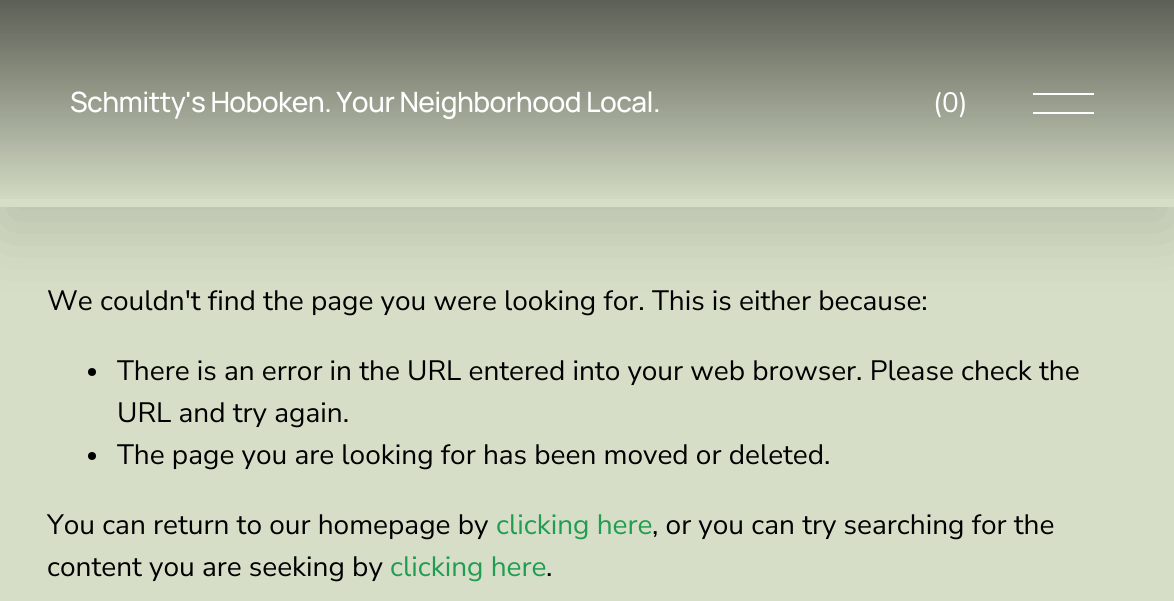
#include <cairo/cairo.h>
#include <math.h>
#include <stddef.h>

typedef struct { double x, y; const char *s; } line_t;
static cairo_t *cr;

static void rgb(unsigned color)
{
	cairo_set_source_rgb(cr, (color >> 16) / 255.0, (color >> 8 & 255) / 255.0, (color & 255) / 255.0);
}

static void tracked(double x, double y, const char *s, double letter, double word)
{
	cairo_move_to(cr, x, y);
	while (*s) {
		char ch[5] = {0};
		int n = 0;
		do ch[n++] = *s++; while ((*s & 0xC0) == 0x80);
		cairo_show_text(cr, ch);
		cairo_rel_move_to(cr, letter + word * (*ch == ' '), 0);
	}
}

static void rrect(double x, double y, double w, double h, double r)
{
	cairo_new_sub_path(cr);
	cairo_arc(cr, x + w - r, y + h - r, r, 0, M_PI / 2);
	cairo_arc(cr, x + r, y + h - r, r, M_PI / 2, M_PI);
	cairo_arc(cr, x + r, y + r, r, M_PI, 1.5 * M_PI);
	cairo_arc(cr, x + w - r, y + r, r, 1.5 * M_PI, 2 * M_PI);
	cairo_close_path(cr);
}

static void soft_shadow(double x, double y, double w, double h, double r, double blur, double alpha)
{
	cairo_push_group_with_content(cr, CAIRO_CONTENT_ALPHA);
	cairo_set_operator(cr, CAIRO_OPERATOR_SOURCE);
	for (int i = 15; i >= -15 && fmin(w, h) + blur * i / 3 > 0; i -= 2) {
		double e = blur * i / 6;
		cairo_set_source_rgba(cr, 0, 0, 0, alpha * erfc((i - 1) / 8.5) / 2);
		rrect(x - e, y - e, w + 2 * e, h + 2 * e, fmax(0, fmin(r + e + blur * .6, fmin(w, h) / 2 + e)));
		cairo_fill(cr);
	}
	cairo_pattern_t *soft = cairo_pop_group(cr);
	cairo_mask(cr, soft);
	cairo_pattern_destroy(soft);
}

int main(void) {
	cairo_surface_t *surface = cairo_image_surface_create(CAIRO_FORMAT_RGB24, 1174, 601);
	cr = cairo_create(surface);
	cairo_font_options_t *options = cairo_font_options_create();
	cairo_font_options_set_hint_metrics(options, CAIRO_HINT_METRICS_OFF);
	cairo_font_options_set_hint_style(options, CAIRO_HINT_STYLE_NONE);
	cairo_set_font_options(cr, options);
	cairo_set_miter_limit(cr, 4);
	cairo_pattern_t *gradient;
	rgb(0xd6dec7);
	cairo_paint(cr);
	cairo_save(cr);
	cairo_set_fill_rule(cr, CAIRO_FILL_RULE_EVEN_ODD);
	cairo_new_path(cr);
	cairo_move_to(cr, 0, 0);
	cairo_line_to(cr, 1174, 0);
	cairo_line_to(cr, 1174, 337);
	cairo_line_to(cr, 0, 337);
	cairo_close_path(cr);
	cairo_move_to(cr, 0, 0);
	cairo_line_to(cr, 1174, 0);
	cairo_line_to(cr, 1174, 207);
	cairo_line_to(cr, 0, 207);
	cairo_close_path(cr);
	cairo_clip(cr);
	rgb(0x000000);
	soft_shadow(0, 21, 1174, 207, 0, 36, 0.15);
	cairo_restore(cr);
	gradient = cairo_pattern_create_linear(587, 0, 587, 207);
	cairo_pattern_add_color_stop_rgba(gradient, 0, 0, 0, 0, 0.57);
	cairo_pattern_add_color_stop_rgba(gradient, 1, 0, 0, 0, 0);
	cairo_set_source(cr, gradient);
	cairo_pattern_destroy(gradient);
	cairo_rectangle(cr, 0, 0, 1174, 199);
	cairo_fill(cr);
	rgb(0xffffff);
	cairo_rectangle(cr, 1033, 93, 61, 2);
	cairo_fill(cr);
	cairo_rectangle(cr, 1033, 112, 61, 2);
	cairo_fill(cr);
	rgb(0x000000);
	cairo_arc(cr, 92, 372, 4, 0, 2 * M_PI);
	cairo_fill(cr);
	cairo_arc(cr, 92, 456, 4, 0, 2 * M_PI);
	cairo_fill(cr);
	cairo_select_font_face(cr, "Manrope Medium", CAIRO_FONT_SLANT_NORMAL, CAIRO_FONT_WEIGHT_NORMAL);
	cairo_set_font_size(cr, 28);
	rgb(0xffffff);
	tracked(70, 112, "Schmitty's Hoboken. Your Neighborhood Local.", -0.55, 0);
	cairo_select_font_face(cr, "Nunito Sans", CAIRO_FONT_SLANT_NORMAL, CAIRO_FONT_WEIGHT_NORMAL);
	cairo_move_to(cr, 933, 112);
	cairo_show_text(cr, "(0)");
	rgb(0x000000);
	{
		static const line_t items[] = {
			{47, 310, "We couldn't find the page you were looking for. This is either because:"},
			{117, 380, "There is an error in the URL entered into your web browser. Please check the"},
			{117, 422, "URL and try again."},
			{117, 464, "The page you are looking for has been moved or deleted."},
			{47, 534, "You can return to our homepage by"},
		};
		for (size_t i = 0; i < sizeof items / sizeof *items; i++) {
			cairo_move_to(cr, items[i].x, items[i].y);
			cairo_show_text(cr, items[i].s);
		}
	}
	rgb(0x209d50);
	cairo_move_to(cr, 496, 534);
	cairo_show_text(cr, "clicking here");
	rgb(0x000000);
	cairo_move_to(cr, 652, 534);
	cairo_show_text(cr, ", or you can try searching for the");
	cairo_move_to(cr, 47, 576);
	cairo_show_text(cr, "content you are seeking by");
	rgb(0x209d50);
	cairo_move_to(cr, 390, 576);
	cairo_show_text(cr, "clicking here");
	rgb(0x000000);
	cairo_move_to(cr, 546, 576);
	cairo_show_text(cr, ".");
	cairo_surface_write_to_png(surface, "page.png");
	cairo_font_options_destroy(options);
	cairo_destroy(cr);
	cairo_surface_destroy(surface);
	return 0;
}
